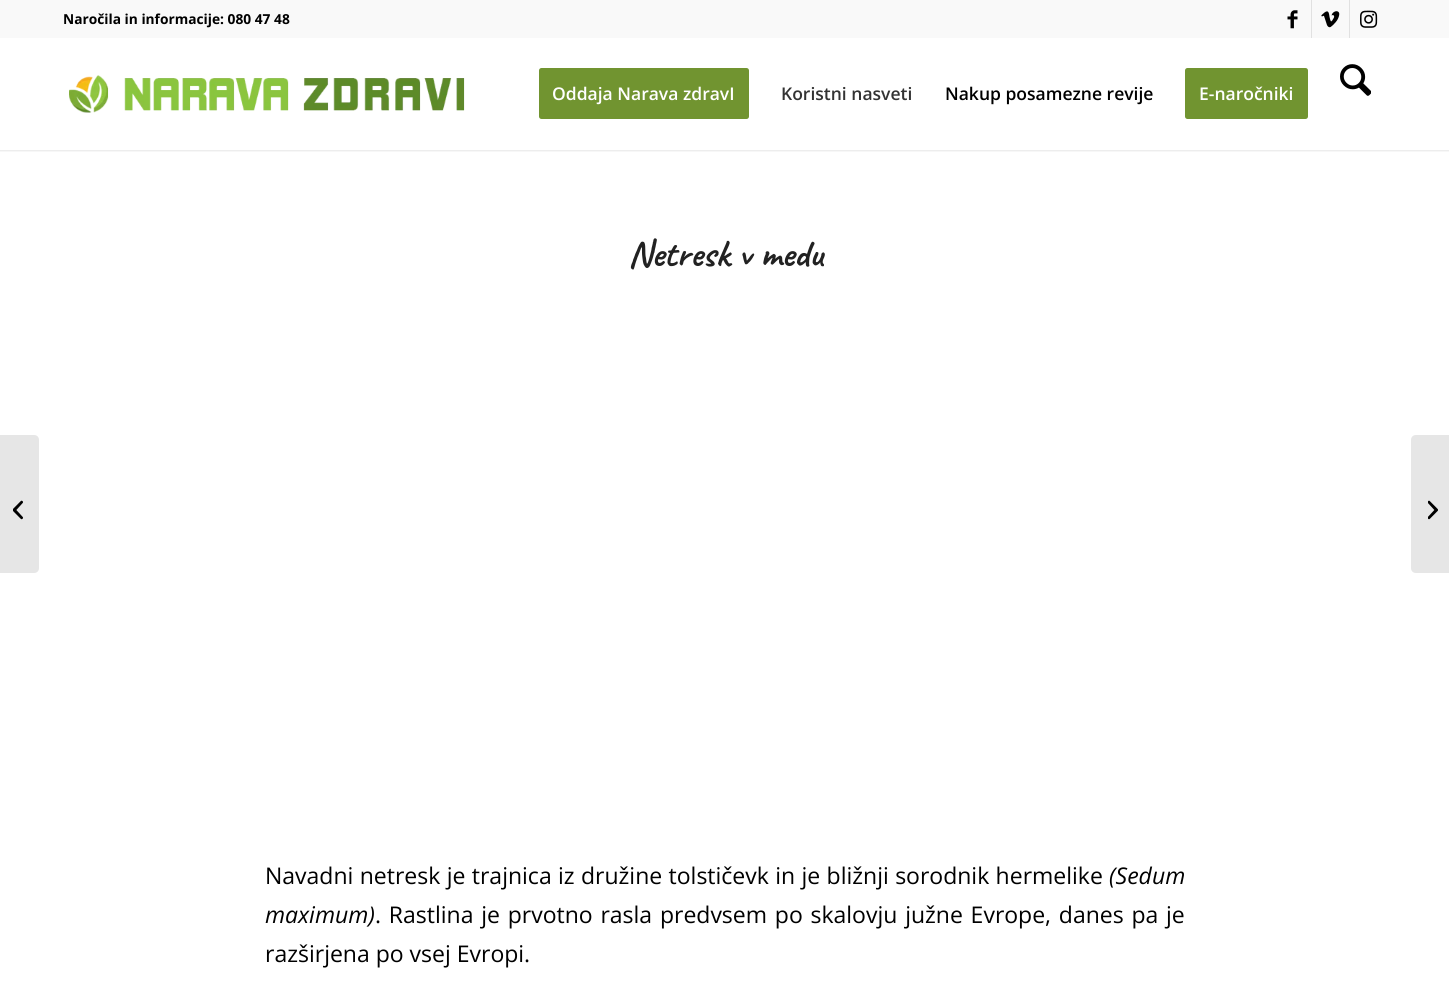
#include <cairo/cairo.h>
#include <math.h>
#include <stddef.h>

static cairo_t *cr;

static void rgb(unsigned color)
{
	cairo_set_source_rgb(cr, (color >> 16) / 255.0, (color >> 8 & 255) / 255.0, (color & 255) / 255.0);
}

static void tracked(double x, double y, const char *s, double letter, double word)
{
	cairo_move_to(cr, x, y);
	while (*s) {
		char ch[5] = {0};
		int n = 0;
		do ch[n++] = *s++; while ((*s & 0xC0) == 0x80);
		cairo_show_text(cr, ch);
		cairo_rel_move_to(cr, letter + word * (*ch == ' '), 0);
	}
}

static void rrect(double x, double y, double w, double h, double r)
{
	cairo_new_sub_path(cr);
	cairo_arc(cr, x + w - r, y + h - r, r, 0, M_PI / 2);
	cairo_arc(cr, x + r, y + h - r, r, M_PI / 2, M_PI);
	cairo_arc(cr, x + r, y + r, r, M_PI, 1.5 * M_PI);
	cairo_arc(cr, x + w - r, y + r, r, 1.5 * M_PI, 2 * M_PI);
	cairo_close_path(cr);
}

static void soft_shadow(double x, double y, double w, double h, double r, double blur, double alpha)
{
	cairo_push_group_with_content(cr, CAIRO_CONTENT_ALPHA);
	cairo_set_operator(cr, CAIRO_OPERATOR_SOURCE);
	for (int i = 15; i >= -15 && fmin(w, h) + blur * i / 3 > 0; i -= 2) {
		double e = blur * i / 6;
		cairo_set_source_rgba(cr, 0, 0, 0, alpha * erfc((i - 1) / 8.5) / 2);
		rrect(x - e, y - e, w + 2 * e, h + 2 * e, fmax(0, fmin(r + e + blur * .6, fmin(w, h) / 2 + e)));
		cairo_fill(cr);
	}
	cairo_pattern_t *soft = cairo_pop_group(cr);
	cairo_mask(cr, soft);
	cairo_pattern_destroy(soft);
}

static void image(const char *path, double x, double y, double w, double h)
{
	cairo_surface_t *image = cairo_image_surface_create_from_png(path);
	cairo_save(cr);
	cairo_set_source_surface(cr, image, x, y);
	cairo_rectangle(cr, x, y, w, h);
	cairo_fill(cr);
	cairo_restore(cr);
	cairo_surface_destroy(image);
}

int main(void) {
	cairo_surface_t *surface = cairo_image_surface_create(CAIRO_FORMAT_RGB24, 1449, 1007);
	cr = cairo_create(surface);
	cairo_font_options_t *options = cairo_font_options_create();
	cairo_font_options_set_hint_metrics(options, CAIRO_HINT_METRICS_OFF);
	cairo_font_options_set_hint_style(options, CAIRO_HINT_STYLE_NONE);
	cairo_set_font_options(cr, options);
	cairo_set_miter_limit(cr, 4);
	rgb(0xffffff);
	cairo_paint(cr);
	cairo_save(cr);
	cairo_rectangle(cr, 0, 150, 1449, 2);
	cairo_clip(cr);
	rgb(0x000000);
	soft_shadow(-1, -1, 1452, 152, 0, 1, 0.1);
	cairo_restore(cr);
	rgb(0xf9f9f9);
	cairo_rectangle(cr, 0, 0, 1449, 38);
	cairo_fill(cr);
	rgb(0xe1e1e1);
	cairo_rectangle(cr, 1311, 0, 1, 38);
	cairo_fill(cr);
	image("img/1.png", 1287, 10, 11, 19);
	cairo_rectangle(cr, 1349, 0, 1, 38);
	cairo_fill(cr);
	image("img/2.png", 1321, 11, 19, 17);
	image("img/3.png", 1360, 10, 18, 18);
	image("img/4.png", 69, 75, 396, 38);
	rgb(0x719430);
	rrect(540.5, 69.5, 207, 48, 1);
	cairo_fill_preserve(cr);
	cairo_set_line_width(cr, 3);
	cairo_stroke(cr);
	rrect(1186.5, 69.5, 120, 48, 1);
	cairo_fill_preserve(cr);
	cairo_stroke(cr);
	image("img/5.png", 1340, 64, 31, 32);
	rgb(0xe6e6e6);
	cairo_new_path(cr);
	cairo_move_to(cr, 0, 435);
	cairo_line_to(cr, 34, 435);
	cairo_curve_to(cr, 37, 435, 39, 437, 39, 440);
	cairo_line_to(cr, 39, 568);
	cairo_curve_to(cr, 39, 571, 37, 573, 34, 573);
	cairo_line_to(cr, 0, 573);
	cairo_close_path(cr);
	cairo_fill(cr);
	image("img/6.png", 13, 500, 10, 20);
	cairo_new_path(cr);
	cairo_move_to(cr, 1416, 435);
	cairo_line_to(cr, 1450, 435);
	cairo_line_to(cr, 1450, 573);
	cairo_line_to(cr, 1416, 573);
	cairo_curve_to(cr, 1413, 573, 1411, 571, 1411, 568);
	cairo_line_to(cr, 1411, 440);
	cairo_curve_to(cr, 1411, 437, 1413, 435, 1416, 435);
	cairo_close_path(cr);
	cairo_fill(cr);
	image("img/7.png", 1428, 500, 10, 20);
	cairo_select_font_face(cr, "Open Sans", CAIRO_FONT_SLANT_NORMAL, CAIRO_FONT_WEIGHT_BOLD);
	cairo_set_font_size(cr, 13.75);
	rgb(0x000000);
	cairo_move_to(cr, 63, 24);
	cairo_show_text(cr, "Naročila in informacije: 080 47 48");
	cairo_select_font_face(cr, "Open Sans SemiBold", CAIRO_FONT_SLANT_NORMAL, CAIRO_FONT_WEIGHT_NORMAL);
	cairo_set_font_size(cr, 17.5);
	rgb(0xffffff);
	cairo_move_to(cr, 552, 100);
	cairo_show_text(cr, "Oddaja Narava zdravI");
	rgb(0x333333);
	cairo_move_to(cr, 781, 100);
	cairo_show_text(cr, "Koristni nasveti");
	rgb(0x000000);
	cairo_move_to(cr, 945, 100);
	cairo_show_text(cr, "Nakup posamezne revije");
	rgb(0xffffff);
	cairo_move_to(cr, 1199, 100);
	cairo_show_text(cr, "E-naročniki");
	cairo_select_font_face(cr, "Caveat", CAIRO_FONT_SLANT_NORMAL, CAIRO_FONT_WEIGHT_BOLD);
	cairo_set_font_size(cr, 37.5);
	rgb(0x222222);
	cairo_move_to(cr, 628, 266);
	cairo_show_text(cr, "Netresk v medu");
	cairo_select_font_face(cr, "Open Sans", CAIRO_FONT_SLANT_NORMAL, CAIRO_FONT_WEIGHT_NORMAL);
	cairo_set_font_size(cr, 23);
	rgb(0x000000);
	tracked(265, 884, "Navadni netresk je trajnica iz družine tolstičevk in je bližnji sorodnik hermelike", 0, 0.4);
	cairo_select_font_face(cr, "Open Sans", CAIRO_FONT_SLANT_ITALIC, CAIRO_FONT_WEIGHT_NORMAL);
	cairo_move_to(cr, 1109, 884);
	cairo_show_text(cr, "(Sedum");
	cairo_move_to(cr, 265, 923);
	cairo_show_text(cr, "maximum)");
	cairo_select_font_face(cr, "Open Sans", CAIRO_FONT_SLANT_NORMAL, CAIRO_FONT_WEIGHT_NORMAL);
	tracked(375, 923, ". Rastlina je prvotno rasla predvsem po skalovju južne Evrope, danes pa je", 0, 1.8);
	cairo_move_to(cr, 265, 962);
	cairo_show_text(cr, "razširjena po vsej Evropi.");
	cairo_surface_write_to_png(surface, "page.png");
	cairo_font_options_destroy(options);
	cairo_destroy(cr);
	cairo_surface_destroy(surface);
	return 0;
}
